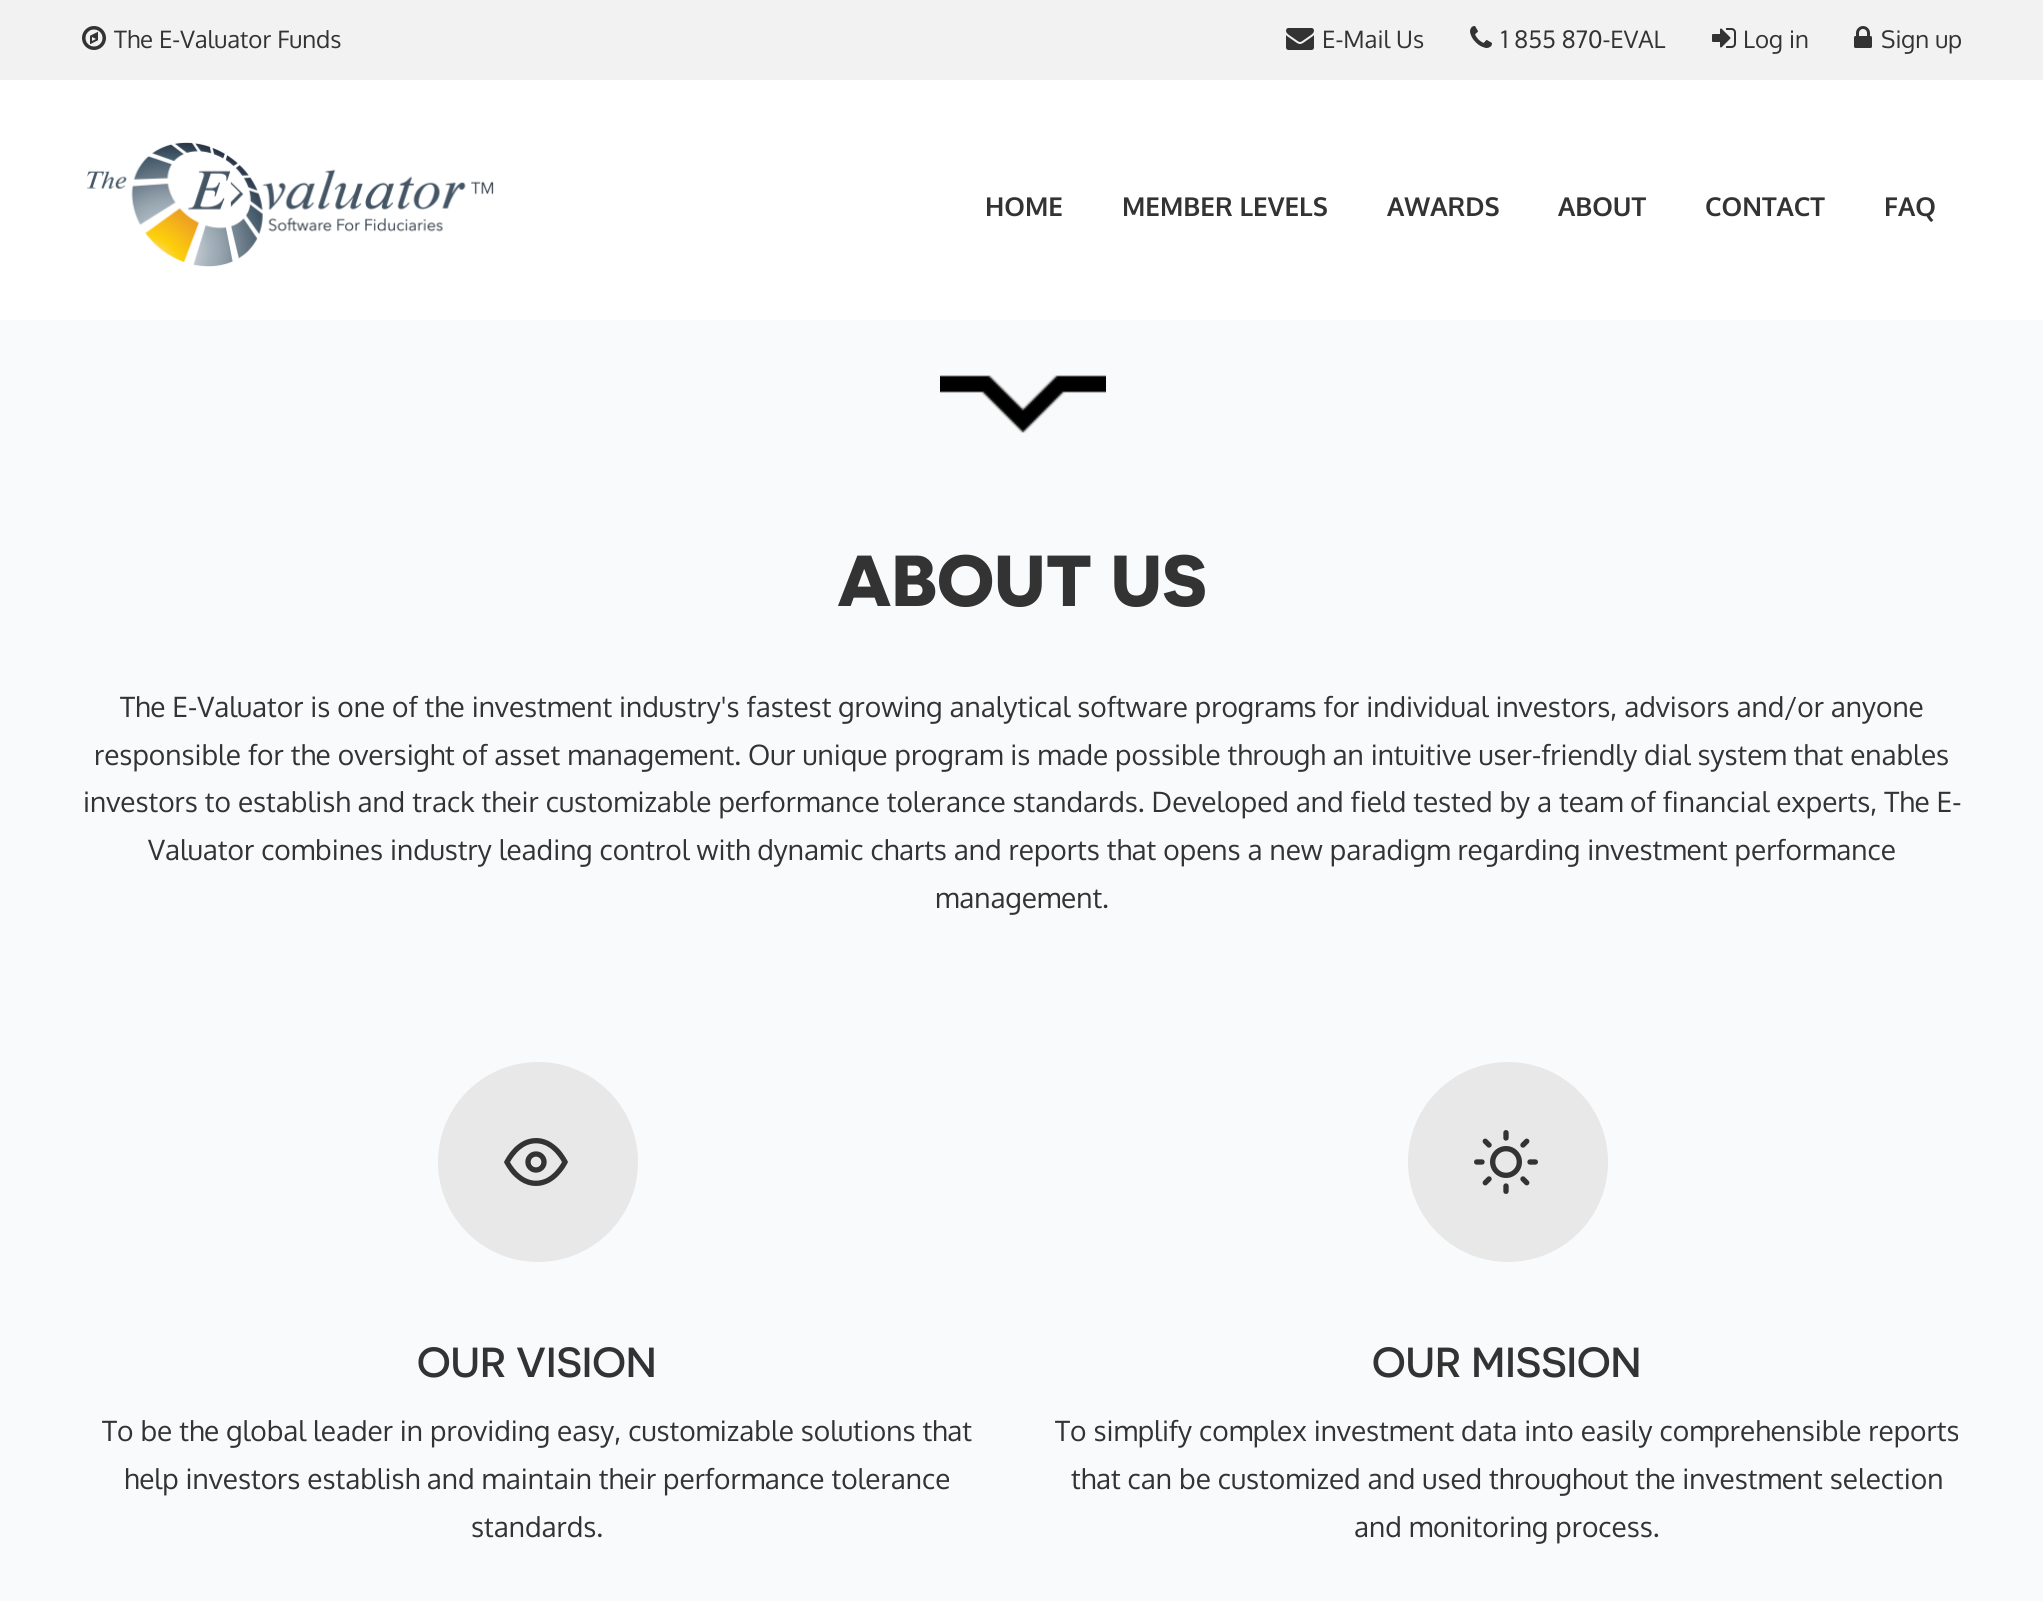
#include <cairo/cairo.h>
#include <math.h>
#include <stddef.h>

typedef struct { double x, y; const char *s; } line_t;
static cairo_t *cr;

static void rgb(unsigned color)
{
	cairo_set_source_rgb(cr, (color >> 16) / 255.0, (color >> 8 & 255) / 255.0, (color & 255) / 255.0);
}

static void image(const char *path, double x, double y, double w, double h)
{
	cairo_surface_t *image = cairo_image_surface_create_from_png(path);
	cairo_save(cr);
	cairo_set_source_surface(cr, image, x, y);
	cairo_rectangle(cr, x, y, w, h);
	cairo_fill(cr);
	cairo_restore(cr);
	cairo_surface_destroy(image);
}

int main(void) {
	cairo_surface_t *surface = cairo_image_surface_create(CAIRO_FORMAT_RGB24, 2043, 1601);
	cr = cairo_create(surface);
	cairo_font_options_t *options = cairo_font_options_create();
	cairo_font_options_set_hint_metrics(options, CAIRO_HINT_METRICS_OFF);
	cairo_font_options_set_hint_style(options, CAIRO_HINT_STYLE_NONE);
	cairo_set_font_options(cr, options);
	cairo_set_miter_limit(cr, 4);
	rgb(0xffffff);
	cairo_paint(cr);
	rgb(0xf2f2f2);
	cairo_rectangle(cr, 0, 0, 2043, 80);
	cairo_fill(cr);
	image("img/1.png", 82, 26, 24, 24);
	image("img/2.png", 1286, 28, 28, 22);
	image("img/3.png", 1470, 26, 22, 22);
	image("img/4.png", 1712, 28, 24, 20);
	image("img/5.png", 1854, 26, 18, 22);
	image("img/6.png", 87, 142, 407, 125);
	rgb(0xf9fafb);
	cairo_rectangle(cr, 0, 320, 2043, 1281);
	cairo_fill(cr);
	image("img/7.png", 940, 375, 166, 58);
	rgb(0xe8e8e8);
	cairo_arc(cr, 538, 1162, 100, 0, 2 * M_PI);
	cairo_fill(cr);
	image("img/8.png", 504, 1138, 64, 48);
	cairo_arc(cr, 1508, 1162, 100, 0, 2 * M_PI);
	cairo_fill(cr);
	image("img/9.png", 1474, 1130, 64, 64);
	cairo_select_font_face(cr, "Oxygen", CAIRO_FONT_SLANT_NORMAL, CAIRO_FONT_WEIGHT_NORMAL);
	cairo_set_font_size(cr, 24);
	rgb(0x333333);
	{
		static const line_t items[] = {
			{114, 48, "The E-Valuator Funds"},
			{1322, 48, "E-Mail Us"},
			{1501, 48, "1 855 870-EVAL"},
			{1743, 48, "Log in"},
			{1881, 48, "Sign up"},
		};
		for (size_t i = 0; i < sizeof items / sizeof *items; i++) {
			cairo_move_to(cr, items[i].x, items[i].y);
			cairo_show_text(cr, items[i].s);
		}
	}
	cairo_select_font_face(cr, "Oxygen", CAIRO_FONT_SLANT_NORMAL, CAIRO_FONT_WEIGHT_BOLD);
	cairo_set_font_size(cr, 26);
	{
		static const line_t items[] = {
			{985, 216, "HOME"},
			{1122, 216, "MEMBER LEVELS"},
			{1387, 216, "AWARDS"},
			{1558, 216, "ABOUT"},
			{1705, 216, "CONTACT"},
			{1884, 216, "FAQ"},
		};
		for (size_t i = 0; i < sizeof items / sizeof *items; i++) {
			cairo_move_to(cr, items[i].x, items[i].y);
			cairo_show_text(cr, items[i].s);
		}
	}
	cairo_select_font_face(cr, "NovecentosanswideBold", CAIRO_FONT_SLANT_NORMAL, CAIRO_FONT_WEIGHT_BOLD);
	cairo_set_font_size(cr, 72);
	cairo_move_to(cr, 837, 606);
	cairo_show_text(cr, "ABOUT US");
	cairo_select_font_face(cr, "Oxygen", CAIRO_FONT_SLANT_NORMAL, CAIRO_FONT_WEIGHT_NORMAL);
	cairo_set_font_size(cr, 28);
	{
		static const line_t items[] = {
			{120, 717, "The E-Valuator is one of the investment industry's fastest growing analytical software programs for individual investors, advisors and/or anyone"},
			{94, 765, "responsible for the oversight of asset management. Our unique program is made possible through an intuitive user-friendly dial system that enables"},
			{83, 812, "investors to establish and track their customizable performance tolerance standards. Developed and field tested by a team of financial experts, The E-"},
			{148, 860, "Valuator combines industry leading control with dynamic charts and reports that opens a new paradigm regarding investment performance"},
			{935, 908, "management."},
		};
		for (size_t i = 0; i < sizeof items / sizeof *items; i++) {
			cairo_move_to(cr, items[i].x, items[i].y);
			cairo_show_text(cr, items[i].s);
		}
	}
	cairo_select_font_face(cr, "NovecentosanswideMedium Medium", CAIRO_FONT_SLANT_NORMAL, CAIRO_FONT_WEIGHT_NORMAL);
	cairo_set_font_size(cr, 42);
	cairo_move_to(cr, 417, 1377);
	cairo_show_text(cr, "OUR VISION");
	cairo_select_font_face(cr, "Oxygen", CAIRO_FONT_SLANT_NORMAL, CAIRO_FONT_WEIGHT_NORMAL);
	cairo_set_font_size(cr, 28);
	{
		static const line_t items[] = {
			{102, 1441, "To be the global leader in providing easy, customizable solutions that"},
			{124, 1489, "help investors establish and maintain their performance tolerance"},
			{471, 1537, "standards."},
		};
		for (size_t i = 0; i < sizeof items / sizeof *items; i++) {
			cairo_move_to(cr, items[i].x, items[i].y);
			cairo_show_text(cr, items[i].s);
		}
	}
	cairo_select_font_face(cr, "NovecentosanswideMedium Medium", CAIRO_FONT_SLANT_NORMAL, CAIRO_FONT_WEIGHT_NORMAL);
	cairo_set_font_size(cr, 42);
	cairo_move_to(cr, 1372, 1377);
	cairo_show_text(cr, "OUR MISSION");
	cairo_select_font_face(cr, "Oxygen", CAIRO_FONT_SLANT_NORMAL, CAIRO_FONT_WEIGHT_NORMAL);
	cairo_set_font_size(cr, 28);
	{
		static const line_t items[] = {
			{1055, 1441, "To simplify complex investment data into easily comprehensible reports"},
			{1071, 1489, "that can be customized and used throughout the investment selection"},
			{1354, 1537, "and monitoring process."},
		};
		for (size_t i = 0; i < sizeof items / sizeof *items; i++) {
			cairo_move_to(cr, items[i].x, items[i].y);
			cairo_show_text(cr, items[i].s);
		}
	}
	cairo_surface_write_to_png(surface, "page.png");
	cairo_font_options_destroy(options);
	cairo_destroy(cr);
	cairo_surface_destroy(surface);
	return 0;
}
